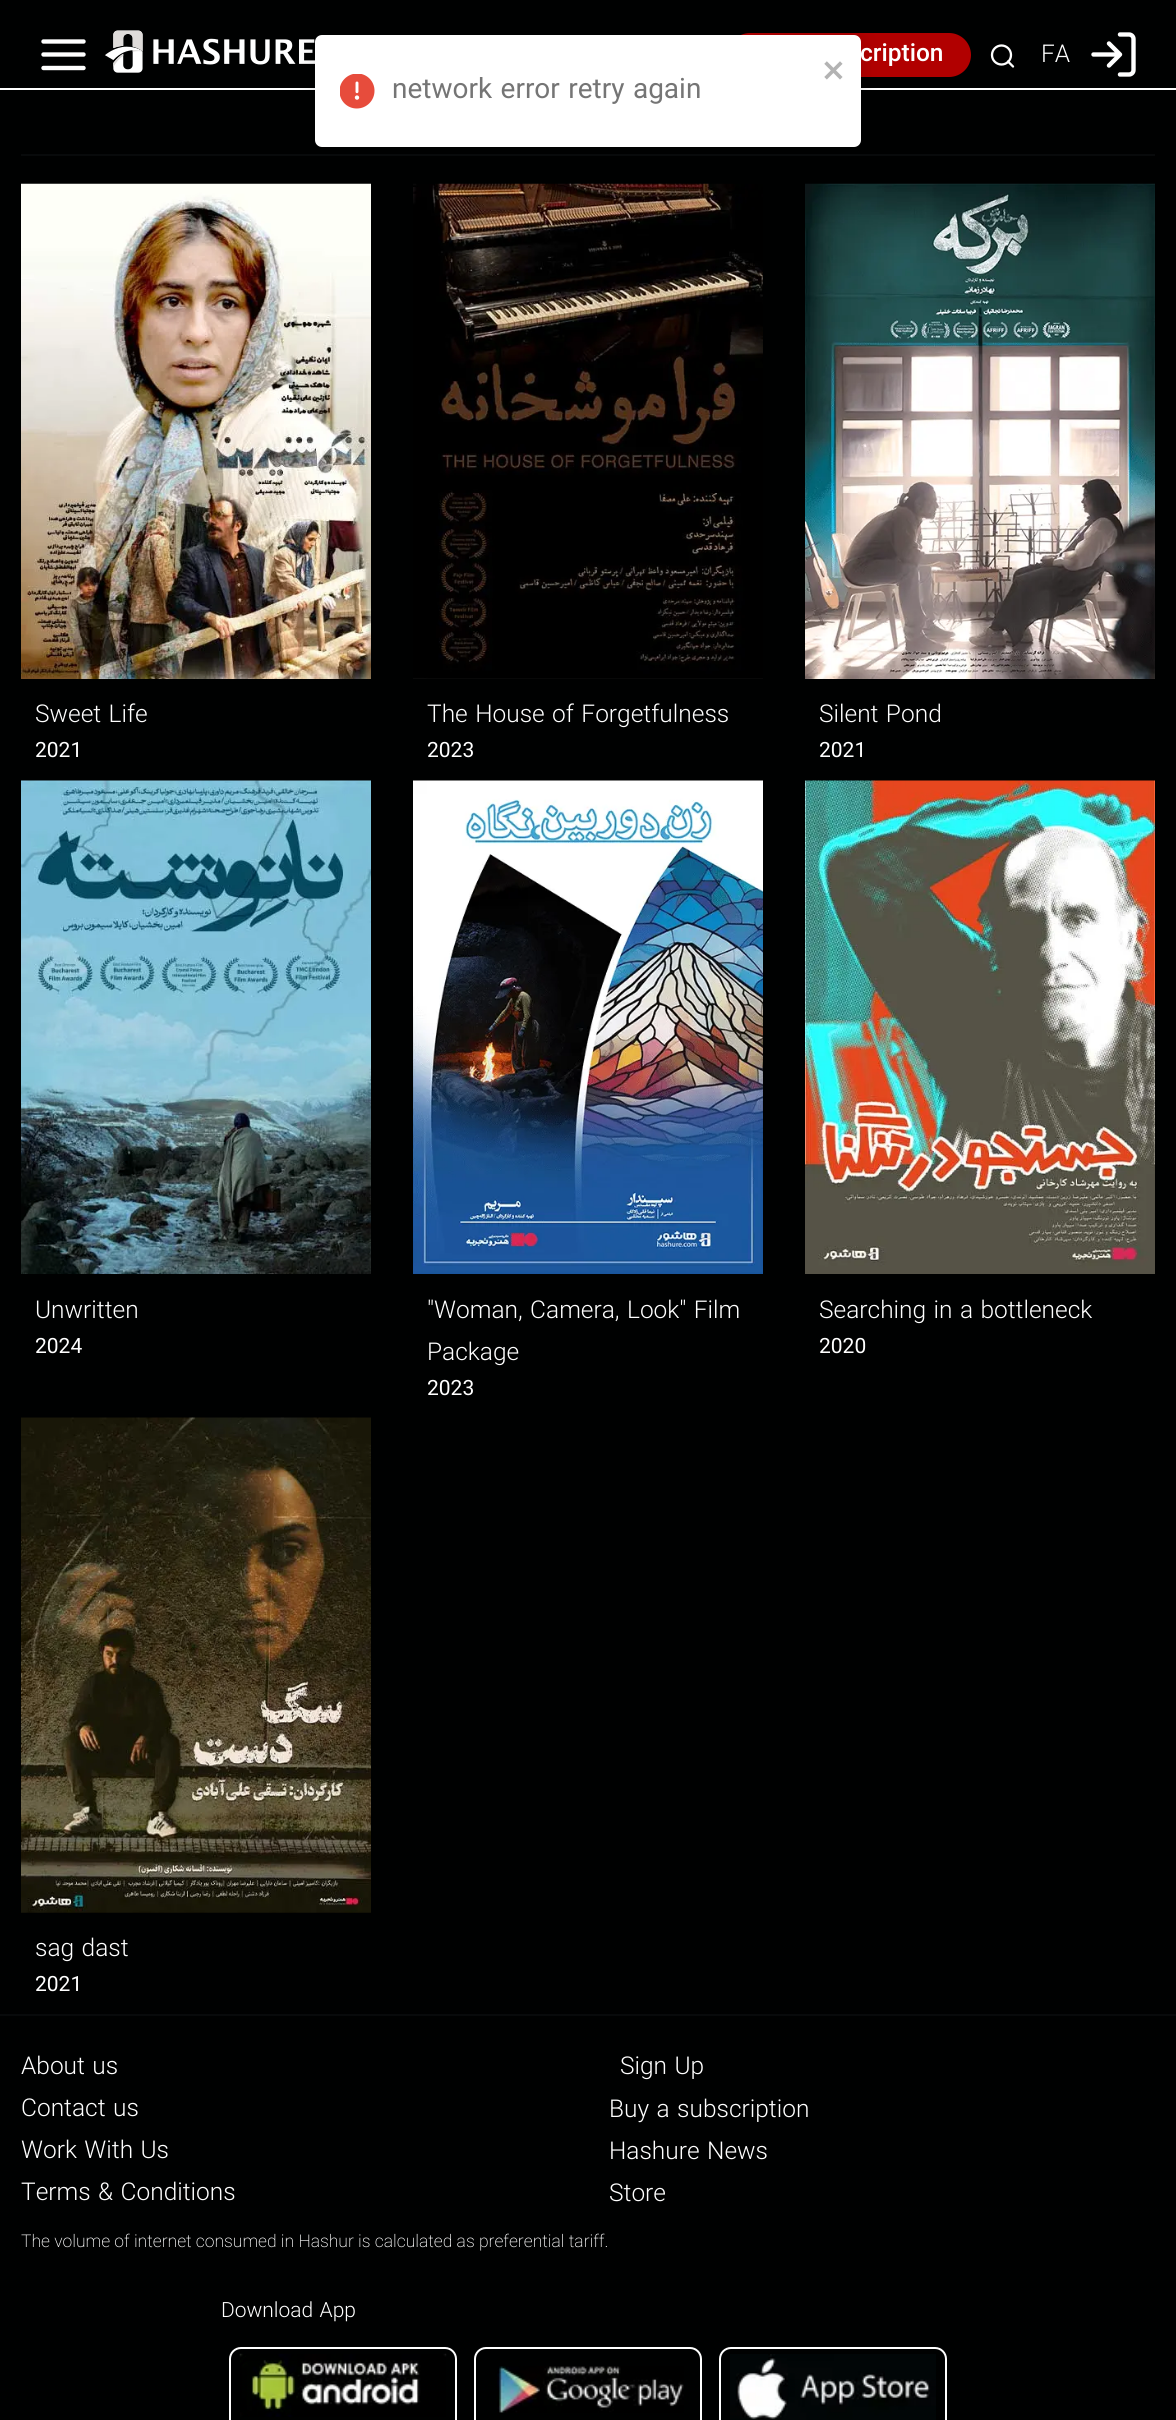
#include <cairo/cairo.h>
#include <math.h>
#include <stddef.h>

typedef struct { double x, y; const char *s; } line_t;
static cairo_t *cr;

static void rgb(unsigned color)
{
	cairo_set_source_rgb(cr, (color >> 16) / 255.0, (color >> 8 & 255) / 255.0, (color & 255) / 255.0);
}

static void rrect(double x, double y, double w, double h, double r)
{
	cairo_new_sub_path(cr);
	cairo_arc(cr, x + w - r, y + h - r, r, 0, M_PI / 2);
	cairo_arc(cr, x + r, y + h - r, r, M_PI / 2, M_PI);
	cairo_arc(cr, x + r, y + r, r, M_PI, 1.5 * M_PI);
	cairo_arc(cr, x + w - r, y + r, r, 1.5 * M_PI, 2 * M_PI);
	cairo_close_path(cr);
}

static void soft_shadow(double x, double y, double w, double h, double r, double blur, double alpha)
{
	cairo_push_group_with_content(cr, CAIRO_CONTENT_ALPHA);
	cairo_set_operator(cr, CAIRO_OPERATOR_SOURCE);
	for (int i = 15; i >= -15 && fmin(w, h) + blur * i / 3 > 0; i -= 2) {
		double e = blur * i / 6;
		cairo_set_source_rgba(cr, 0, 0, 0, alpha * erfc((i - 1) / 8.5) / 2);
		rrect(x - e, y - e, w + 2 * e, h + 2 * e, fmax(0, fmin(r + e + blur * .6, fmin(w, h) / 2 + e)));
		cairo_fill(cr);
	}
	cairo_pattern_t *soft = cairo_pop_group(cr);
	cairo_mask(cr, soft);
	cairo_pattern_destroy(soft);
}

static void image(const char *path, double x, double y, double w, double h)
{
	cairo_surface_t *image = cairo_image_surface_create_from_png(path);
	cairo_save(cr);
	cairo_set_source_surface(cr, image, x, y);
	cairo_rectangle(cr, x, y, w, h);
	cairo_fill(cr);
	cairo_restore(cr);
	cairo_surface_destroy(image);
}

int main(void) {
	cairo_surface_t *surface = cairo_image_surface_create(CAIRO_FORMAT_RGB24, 1176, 2420);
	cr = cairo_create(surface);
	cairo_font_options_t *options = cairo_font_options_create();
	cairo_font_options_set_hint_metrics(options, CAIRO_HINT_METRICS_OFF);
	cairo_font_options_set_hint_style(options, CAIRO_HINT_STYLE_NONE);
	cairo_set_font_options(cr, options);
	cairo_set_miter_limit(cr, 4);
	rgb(0x000101);
	cairo_paint(cr);
	rgb(0xffffff);
	cairo_rectangle(cr, 0, 88, 1176, 2);
	cairo_fill(cr);
	cairo_new_path(cr);
	cairo_move_to(cr, 43.5, 54.5);
	cairo_line_to(cr, 83.5, 54.5);
	cairo_move_to(cr, 43.5, 41.5);
	cairo_line_to(cr, 83.5, 41.5);
	cairo_move_to(cr, 43.5, 68);
	cairo_line_to(cr, 83.5, 68);
	cairo_set_line_width(cr, 4.4);
	cairo_set_line_cap(cr, CAIRO_LINE_CAP_ROUND);
	cairo_set_line_join(cr, CAIRO_LINE_JOIN_ROUND);
	cairo_stroke(cr);
	image("img/1.png", 105, 30, 210, 43);
	rgb(0xb10000);
	rrect(728, 33, 243, 44, 22);
	cairo_fill(cr);
	cairo_arc(cr, 1001.5, 55, 9.5, 0, 2 * M_PI);
	rgb(0xffffff);
	cairo_set_line_width(cr, 2.3);
	cairo_set_line_cap(cr, CAIRO_LINE_CAP_BUTT);
	cairo_set_line_join(cr, CAIRO_LINE_JOIN_MITER);
	cairo_stroke(cr);
	cairo_new_path(cr);
	cairo_move_to(cr, 1013, 66.5);
	cairo_line_to(cr, 1008, 61.5);
	cairo_set_line_cap(cr, CAIRO_LINE_CAP_ROUND);
	cairo_set_line_join(cr, CAIRO_LINE_JOIN_ROUND);
	cairo_stroke(cr);
	cairo_new_path(cr);
	cairo_move_to(cr, 1120, 34.5);
	cairo_line_to(cr, 1129, 34.5);
	cairo_curve_to(cr, 1131.5, 34.5, 1133.5, 36.5, 1133.5, 39);
	cairo_line_to(cr, 1133.5, 70);
	cairo_curve_to(cr, 1133.5, 72.5, 1131.5, 74.5, 1129, 74.5);
	cairo_line_to(cr, 1120, 74.5);
	cairo_move_to(cr, 1109, 65.5);
	cairo_line_to(cr, 1120, 54.5);
	cairo_line_to(cr, 1109, 43.5);
	cairo_move_to(cr, 1120, 54.5);
	cairo_line_to(cr, 1093.5, 54.5);
	cairo_set_line_width(cr, 4.4);
	cairo_stroke(cr);
	rgb(0x080a0b);
	cairo_rectangle(cr, 21, 154, 1134, 2);
	cairo_fill(cr);
	image("img/4.png", 21, 183, 350, 496);
	image("img/5.png", 413, 183, 350, 496);
	image("img/6.png", 805, 183, 350, 496);
	rgb(0x000000);
	soft_shadow(315, 39, 546, 112, 7, 13, 0.05);
	soft_shadow(315, 37, 546, 112, 7, 9, 0.1);
	rgb(0xffffff);
	rrect(315, 35, 546, 112, 7);
	cairo_fill(cr);
	image("img/2.png", 824, 61, 19, 19);
	image("img/3.png", 340, 74, 35, 35);
	image("img/7.png", 21, 780, 350, 494);
	image("img/8.png", 413, 780, 350, 494);
	image("img/9.png", 805, 780, 350, 494);
	image("img/10.png", 21, 1417, 350, 496);
	rgb(0x080a0b);
	cairo_rectangle(cr, 0, 2014, 1176, 2);
	cairo_fill(cr);
	rrect(230, 2348, 226, 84, 11);
	rgb(0xffffff);
	cairo_set_line_width(cr, 2);
	cairo_set_line_cap(cr, CAIRO_LINE_CAP_BUTT);
	cairo_set_line_join(cr, CAIRO_LINE_JOIN_MITER);
	cairo_stroke(cr);
	image("img/11.png", 239, 2353, 208, 64);
	rrect(475, 2348, 226, 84, 11);
	cairo_stroke(cr);
	image("img/12.png", 497, 2366, 187, 47);
	rrect(720, 2348, 226, 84, 11);
	cairo_stroke(cr);
	image("img/13.png", 730, 2354, 206, 66);
	cairo_select_font_face(cr, "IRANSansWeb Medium", CAIRO_FONT_SLANT_NORMAL, CAIRO_FONT_WEIGHT_NORMAL);
	cairo_set_font_size(cr, 24.5);
	cairo_move_to(cr, 860, 61);
	cairo_show_text(cr, "cription");
	cairo_select_font_face(cr, "Roboto Light", CAIRO_FONT_SLANT_NORMAL, CAIRO_FONT_WEIGHT_NORMAL);
	cairo_move_to(cr, 1041, 62);
	cairo_show_text(cr, "FA");
	cairo_select_font_face(cr, "IRANSansWeb", CAIRO_FONT_SLANT_NORMAL, CAIRO_FONT_WEIGHT_NORMAL);
	cairo_set_font_size(cr, 28);
	rgb(0x757575);
	cairo_move_to(cr, 392, 98);
	cairo_show_text(cr, "network error retry again");
	cairo_select_font_face(cr, "IRANSansWeb Light", CAIRO_FONT_SLANT_NORMAL, CAIRO_FONT_WEIGHT_NORMAL);
	cairo_set_font_size(cr, 24.5);
	rgb(0xffffff);
	cairo_move_to(cr, 35, 722);
	cairo_show_text(cr, "Sweet Life");
	cairo_select_font_face(cr, "Roboto", CAIRO_FONT_SLANT_NORMAL, CAIRO_FONT_WEIGHT_NORMAL);
	cairo_set_font_size(cr, 21);
	cairo_move_to(cr, 35, 757);
	cairo_show_text(cr, "2021");
	cairo_select_font_face(cr, "IRANSansWeb Light", CAIRO_FONT_SLANT_NORMAL, CAIRO_FONT_WEIGHT_NORMAL);
	cairo_set_font_size(cr, 24.5);
	cairo_move_to(cr, 427, 722);
	cairo_show_text(cr, "The House of Forgetfulness");
	cairo_select_font_face(cr, "Roboto", CAIRO_FONT_SLANT_NORMAL, CAIRO_FONT_WEIGHT_NORMAL);
	cairo_set_font_size(cr, 21);
	cairo_move_to(cr, 427, 757);
	cairo_show_text(cr, "2023");
	cairo_select_font_face(cr, "IRANSansWeb Light", CAIRO_FONT_SLANT_NORMAL, CAIRO_FONT_WEIGHT_NORMAL);
	cairo_set_font_size(cr, 24.5);
	cairo_move_to(cr, 819, 722);
	cairo_show_text(cr, "Silent Pond");
	cairo_select_font_face(cr, "Roboto", CAIRO_FONT_SLANT_NORMAL, CAIRO_FONT_WEIGHT_NORMAL);
	cairo_set_font_size(cr, 21);
	cairo_move_to(cr, 819, 757);
	cairo_show_text(cr, "2021");
	cairo_select_font_face(cr, "IRANSansWeb Light", CAIRO_FONT_SLANT_NORMAL, CAIRO_FONT_WEIGHT_NORMAL);
	cairo_set_font_size(cr, 24.5);
	cairo_move_to(cr, 35, 1318);
	cairo_show_text(cr, "Unwritten");
	cairo_select_font_face(cr, "Roboto", CAIRO_FONT_SLANT_NORMAL, CAIRO_FONT_WEIGHT_NORMAL);
	cairo_set_font_size(cr, 21);
	cairo_move_to(cr, 35, 1353);
	cairo_show_text(cr, "2024");
	cairo_select_font_face(cr, "IRANSansWeb Light", CAIRO_FONT_SLANT_NORMAL, CAIRO_FONT_WEIGHT_NORMAL);
	cairo_set_font_size(cr, 24.5);
	cairo_move_to(cr, 427, 1318);
	cairo_show_text(cr, "\"Woman, Camera, Look\" Film");
	cairo_move_to(cr, 427, 1360);
	cairo_show_text(cr, "Package");
	cairo_select_font_face(cr, "Roboto", CAIRO_FONT_SLANT_NORMAL, CAIRO_FONT_WEIGHT_NORMAL);
	cairo_set_font_size(cr, 21);
	cairo_move_to(cr, 427, 1395);
	cairo_show_text(cr, "2023");
	cairo_select_font_face(cr, "IRANSansWeb Light", CAIRO_FONT_SLANT_NORMAL, CAIRO_FONT_WEIGHT_NORMAL);
	cairo_set_font_size(cr, 24.5);
	cairo_move_to(cr, 819, 1318);
	cairo_show_text(cr, "Searching in a bottleneck");
	cairo_select_font_face(cr, "Roboto", CAIRO_FONT_SLANT_NORMAL, CAIRO_FONT_WEIGHT_NORMAL);
	cairo_set_font_size(cr, 21);
	cairo_move_to(cr, 819, 1353);
	cairo_show_text(cr, "2020");
	cairo_select_font_face(cr, "IRANSansWeb Light", CAIRO_FONT_SLANT_NORMAL, CAIRO_FONT_WEIGHT_NORMAL);
	cairo_set_font_size(cr, 24.5);
	cairo_move_to(cr, 35, 1956);
	cairo_show_text(cr, "sag dast");
	cairo_select_font_face(cr, "Roboto", CAIRO_FONT_SLANT_NORMAL, CAIRO_FONT_WEIGHT_NORMAL);
	cairo_set_font_size(cr, 21);
	cairo_move_to(cr, 35, 1991);
	cairo_show_text(cr, "2021");
	cairo_select_font_face(cr, "IRANSansWeb Light", CAIRO_FONT_SLANT_NORMAL, CAIRO_FONT_WEIGHT_NORMAL);
	cairo_set_font_size(cr, 24.5);
	{
		static const line_t items[] = {
			{21, 2074, "About us"},
			{21, 2116, "Contact us"},
			{21, 2158, "Work With Us"},
			{21, 2200, "Terms & Conditions"},
			{620, 2074, "Sign Up"},
			{609, 2117, "Buy a subscription"},
			{609, 2159, "Hashure News"},
			{609, 2201, "Store"},
		};
		for (size_t i = 0; i < sizeof items / sizeof *items; i++) {
			cairo_move_to(cr, items[i].x, items[i].y);
			cairo_show_text(cr, items[i].s);
		}
	}
	cairo_select_font_face(cr, "Roboto ExtraLight", CAIRO_FONT_SLANT_NORMAL, CAIRO_FONT_WEIGHT_NORMAL);
	cairo_set_font_size(cr, 17.5);
	cairo_move_to(cr, 21, 2247);
	cairo_show_text(cr, "The volume of internet consumed in Hashur is calculated as preferential tariff.");
	cairo_select_font_face(cr, "IRANSansWeb ExtraLight", CAIRO_FONT_SLANT_NORMAL, CAIRO_FONT_WEIGHT_NORMAL);
	cairo_set_font_size(cr, 21);
	cairo_move_to(cr, 221, 2317);
	cairo_show_text(cr, "Download App");
	cairo_surface_write_to_png(surface, "page.png");
	cairo_font_options_destroy(options);
	cairo_destroy(cr);
	cairo_surface_destroy(surface);
	return 0;
}
